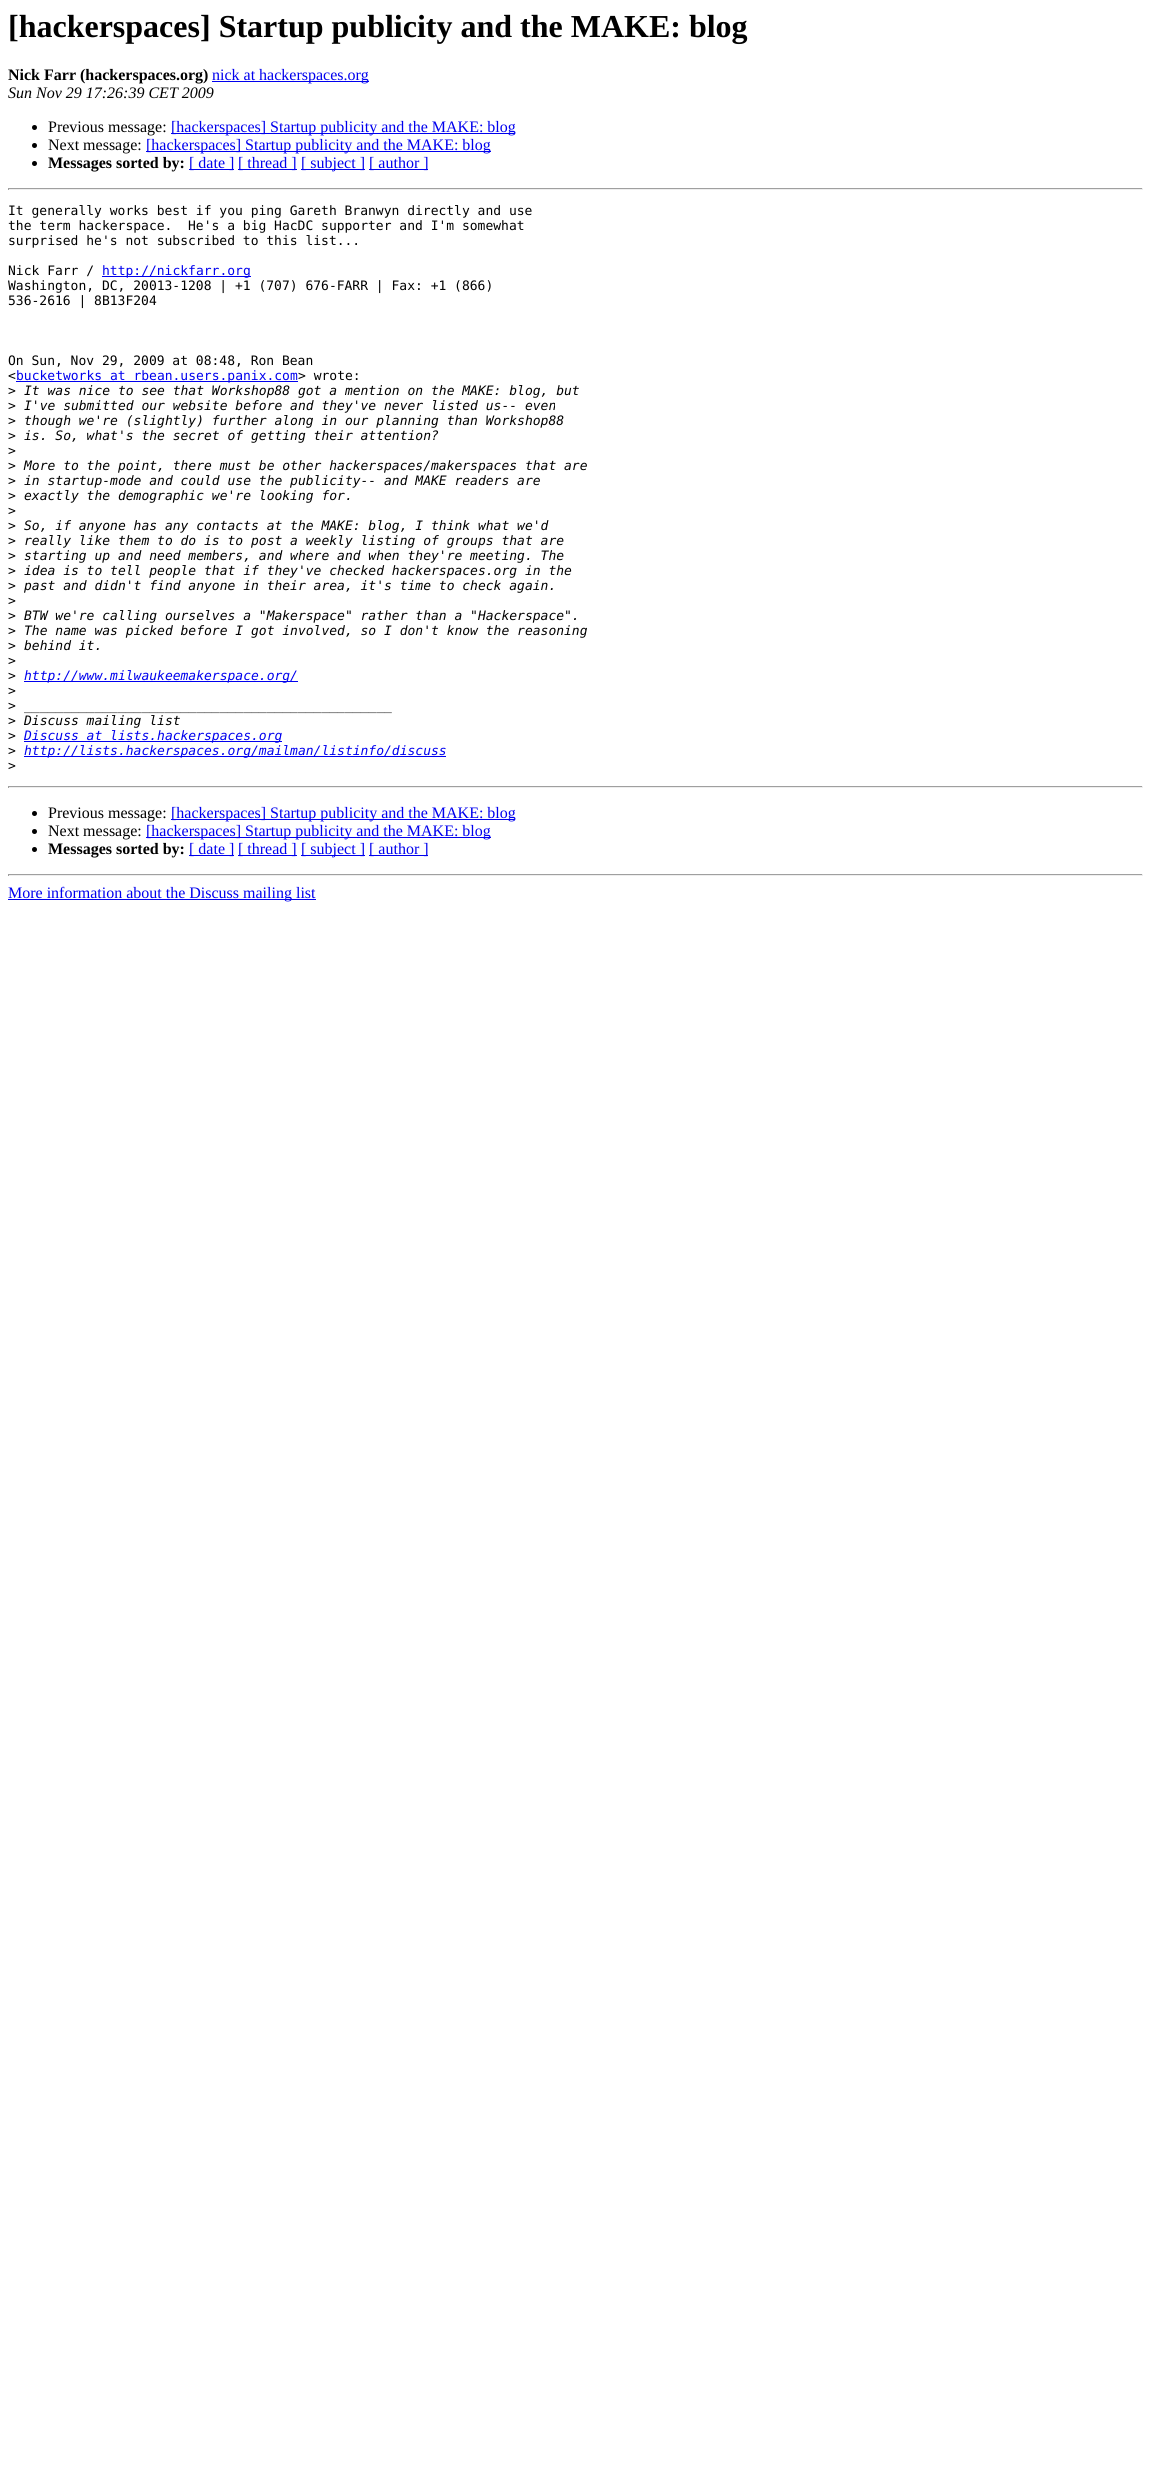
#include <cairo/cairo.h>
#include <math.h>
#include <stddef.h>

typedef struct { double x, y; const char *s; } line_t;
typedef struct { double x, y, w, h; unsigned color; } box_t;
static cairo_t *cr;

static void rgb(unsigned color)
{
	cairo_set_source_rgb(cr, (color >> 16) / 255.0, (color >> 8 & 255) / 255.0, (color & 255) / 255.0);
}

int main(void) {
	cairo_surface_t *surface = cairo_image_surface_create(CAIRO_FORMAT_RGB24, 1151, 2487);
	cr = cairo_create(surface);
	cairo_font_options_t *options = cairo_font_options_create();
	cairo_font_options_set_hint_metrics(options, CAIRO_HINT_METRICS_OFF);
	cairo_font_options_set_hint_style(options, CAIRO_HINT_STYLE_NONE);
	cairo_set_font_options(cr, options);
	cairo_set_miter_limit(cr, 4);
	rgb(0xffffff);
	cairo_paint(cr);
	rgb(0x0000ee);
	cairo_rectangle(cr, 212, 81, 157, 1);
	cairo_fill(cr);
	rgb(0x000000);
	cairo_arc(cr, 34.5, 127.5, 2.5, 0, 2 * M_PI);
	cairo_fill(cr);
	rgb(0x0000ee);
	cairo_rectangle(cr, 171, 133, 344, 1);
	cairo_fill(cr);
	rgb(0x000000);
	cairo_arc(cr, 34.5, 145.5, 2.5, 0, 2 * M_PI);
	cairo_fill(cr);
	rgb(0x0000ee);
	cairo_rectangle(cr, 146, 151, 345, 1);
	cairo_fill(cr);
	rgb(0x000000);
	cairo_arc(cr, 34.5, 163.5, 2.5, 0, 2 * M_PI);
	cairo_fill(cr);
	{
		static const box_t items[] = {
			{189, 169, 45, 1, 0x0000ee},
			{238, 169, 59, 1, 0x0000ee},
			{301, 169, 64, 1, 0x0000ee},
			{369, 169, 59, 1, 0x0000ee},
			{8, 188, 1135, 1, 0x9f9f9f},
			{1142, 188, 1, 2, 0xeeeeee},
			{8, 189, 1135, 1, 0xeeeeee},
			{8, 188, 1, 2, 0x9f9f9f},
			{102, 276, 149, 1, 0x0000ee},
			{16, 381, 282, 1, 0x0000ee},
			{24, 681, 274, 1, 0x0000ee},
			{24, 741, 258, 1, 0x0000ee},
			{24, 756, 422, 1, 0x0000ee},
			{8, 786, 1135, 1, 0x9f9f9f},
			{1142, 786, 1, 2, 0xeeeeee},
			{8, 787, 1135, 1, 0xeeeeee},
			{8, 786, 1, 2, 0x9f9f9f},
		};
		for (size_t i = 0; i < sizeof items / sizeof *items; i++) {
			rgb(items[i].color);
			cairo_rectangle(cr, items[i].x, items[i].y, items[i].w, items[i].h);
			cairo_fill(cr);
		}
	}
	rgb(0x000000);
	cairo_arc(cr, 34.5, 813.5, 2.5, 0, 2 * M_PI);
	cairo_fill(cr);
	rgb(0x0000ee);
	cairo_rectangle(cr, 171, 819, 344, 1);
	cairo_fill(cr);
	rgb(0x000000);
	cairo_arc(cr, 34.5, 831.5, 2.5, 0, 2 * M_PI);
	cairo_fill(cr);
	rgb(0x0000ee);
	cairo_rectangle(cr, 146, 837, 345, 1);
	cairo_fill(cr);
	rgb(0x000000);
	cairo_arc(cr, 34.5, 849.5, 2.5, 0, 2 * M_PI);
	cairo_fill(cr);
	{
		static const box_t items[] = {
			{189, 855, 45, 1, 0x0000ee},
			{238, 855, 59, 1, 0x0000ee},
			{301, 855, 64, 1, 0x0000ee},
			{369, 855, 59, 1, 0x0000ee},
			{8, 874, 1135, 1, 0x9f9f9f},
			{1142, 874, 1, 2, 0xeeeeee},
			{8, 875, 1135, 1, 0xeeeeee},
			{8, 874, 1, 2, 0x9f9f9f},
			{8, 899, 308, 1, 0x0000ee},
		};
		for (size_t i = 0; i < sizeof items / sizeof *items; i++) {
			rgb(items[i].color);
			cairo_rectangle(cr, items[i].x, items[i].y, items[i].w, items[i].h);
			cairo_fill(cr);
		}
	}
	cairo_select_font_face(cr, "Liberation Serif", CAIRO_FONT_SLANT_NORMAL, CAIRO_FONT_WEIGHT_BOLD);
	cairo_set_font_size(cr, 32);
	rgb(0x000000);
	cairo_move_to(cr, 8, 37);
	cairo_show_text(cr, "[hackerspaces] Startup publicity and the MAKE: blog");
	cairo_set_font_size(cr, 16);
	cairo_move_to(cr, 8, 80);
	cairo_show_text(cr, "Nick Farr (hackerspaces.org)");
	cairo_select_font_face(cr, "Liberation Serif", CAIRO_FONT_SLANT_NORMAL, CAIRO_FONT_WEIGHT_NORMAL);
	rgb(0x0000ee);
	cairo_move_to(cr, 212, 80);
	cairo_show_text(cr, "nick at hackerspaces.org");
	cairo_select_font_face(cr, "Liberation Serif", CAIRO_FONT_SLANT_ITALIC, CAIRO_FONT_WEIGHT_NORMAL);
	rgb(0x000000);
	cairo_move_to(cr, 8, 98);
	cairo_show_text(cr, "Sun Nov 29 17:26:39 CET 2009");
	cairo_select_font_face(cr, "Liberation Serif", CAIRO_FONT_SLANT_NORMAL, CAIRO_FONT_WEIGHT_NORMAL);
	cairo_move_to(cr, 48, 132);
	cairo_show_text(cr, "Previous message:");
	rgb(0x0000ee);
	cairo_move_to(cr, 171, 132);
	cairo_show_text(cr, "[hackerspaces] Startup publicity and the MAKE: blog");
	rgb(0x000000);
	cairo_move_to(cr, 48, 150);
	cairo_show_text(cr, "Next message:");
	rgb(0x0000ee);
	cairo_move_to(cr, 146, 150);
	cairo_show_text(cr, "[hackerspaces] Startup publicity and the MAKE: blog");
	cairo_select_font_face(cr, "Liberation Serif", CAIRO_FONT_SLANT_NORMAL, CAIRO_FONT_WEIGHT_BOLD);
	rgb(0x000000);
	cairo_move_to(cr, 48, 168);
	cairo_show_text(cr, "Messages sorted by:");
	cairo_select_font_face(cr, "Liberation Serif", CAIRO_FONT_SLANT_NORMAL, CAIRO_FONT_WEIGHT_NORMAL);
	rgb(0x0000ee);
	{
		static const line_t items[] = {
			{189, 168, "[ date ]"},
			{238, 168, "[ thread ]"},
			{301, 168, "[ subject ]"},
			{369, 168, "[ author ]"},
		};
		for (size_t i = 0; i < sizeof items / sizeof *items; i++) {
			cairo_move_to(cr, items[i].x, items[i].y);
			cairo_show_text(cr, items[i].s);
		}
	}
	cairo_select_font_face(cr, "DejaVu Sans Mono", CAIRO_FONT_SLANT_NORMAL, CAIRO_FONT_WEIGHT_NORMAL);
	cairo_set_font_size(cr, 13);
	rgb(0x000000);
	{
		static const line_t items[] = {
			{8, 215, "It generally works best if you ping Gareth Branwyn directly and use"},
			{8, 230, "the term hackerspace.  He's a big HacDC supporter and I'm somewhat"},
			{8, 245, "surprised he's not subscribed to this list..."},
			{8, 275, "Nick Farr /"},
		};
		for (size_t i = 0; i < sizeof items / sizeof *items; i++) {
			cairo_move_to(cr, items[i].x, items[i].y);
			cairo_show_text(cr, items[i].s);
		}
	}
	rgb(0x0000ee);
	cairo_move_to(cr, 102, 275);
	cairo_show_text(cr, "http://nickfarr.org");
	rgb(0x000000);
	{
		static const line_t items[] = {
			{8, 290, "Washington, DC, 20013-1208 | +1 (707) 676-FARR | Fax: +1 (866)"},
			{8, 305, "536-2616 | 8B13F204"},
			{8, 365, "On Sun, Nov 29, 2009 at 08:48, Ron Bean"},
			{8, 380, "<"},
		};
		for (size_t i = 0; i < sizeof items / sizeof *items; i++) {
			cairo_move_to(cr, items[i].x, items[i].y);
			cairo_show_text(cr, items[i].s);
		}
	}
	rgb(0x0000ee);
	cairo_move_to(cr, 16, 380);
	cairo_show_text(cr, "bucketworks at rbean.users.panix.com");
	rgb(0x000000);
	cairo_move_to(cr, 298, 380);
	cairo_show_text(cr, "> wrote:");
	cairo_move_to(cr, 8, 395);
	cairo_show_text(cr, ">");
	cairo_select_font_face(cr, "DejaVu Sans Mono", CAIRO_FONT_SLANT_ITALIC, CAIRO_FONT_WEIGHT_NORMAL);
	cairo_move_to(cr, 24, 395);
	cairo_show_text(cr, "It was nice to see that Workshop88 got a mention on the MAKE: blog, but");
	cairo_select_font_face(cr, "DejaVu Sans Mono", CAIRO_FONT_SLANT_NORMAL, CAIRO_FONT_WEIGHT_NORMAL);
	cairo_move_to(cr, 8, 410);
	cairo_show_text(cr, ">");
	cairo_select_font_face(cr, "DejaVu Sans Mono", CAIRO_FONT_SLANT_ITALIC, CAIRO_FONT_WEIGHT_NORMAL);
	cairo_move_to(cr, 24, 410);
	cairo_show_text(cr, "I've submitted our website before and they've never listed us-- even");
	cairo_select_font_face(cr, "DejaVu Sans Mono", CAIRO_FONT_SLANT_NORMAL, CAIRO_FONT_WEIGHT_NORMAL);
	cairo_move_to(cr, 8, 425);
	cairo_show_text(cr, ">");
	cairo_select_font_face(cr, "DejaVu Sans Mono", CAIRO_FONT_SLANT_ITALIC, CAIRO_FONT_WEIGHT_NORMAL);
	cairo_move_to(cr, 24, 425);
	cairo_show_text(cr, "though we're (slightly) further along in our planning than Workshop88");
	cairo_select_font_face(cr, "DejaVu Sans Mono", CAIRO_FONT_SLANT_NORMAL, CAIRO_FONT_WEIGHT_NORMAL);
	cairo_move_to(cr, 8, 440);
	cairo_show_text(cr, ">");
	cairo_select_font_face(cr, "DejaVu Sans Mono", CAIRO_FONT_SLANT_ITALIC, CAIRO_FONT_WEIGHT_NORMAL);
	cairo_move_to(cr, 24, 440);
	cairo_show_text(cr, "is. So, what's the secret of getting their attention?");
	cairo_select_font_face(cr, "DejaVu Sans Mono", CAIRO_FONT_SLANT_NORMAL, CAIRO_FONT_WEIGHT_NORMAL);
	cairo_move_to(cr, 8, 455);
	cairo_show_text(cr, ">");
	cairo_move_to(cr, 8, 470);
	cairo_show_text(cr, ">");
	cairo_select_font_face(cr, "DejaVu Sans Mono", CAIRO_FONT_SLANT_ITALIC, CAIRO_FONT_WEIGHT_NORMAL);
	cairo_move_to(cr, 24, 470);
	cairo_show_text(cr, "More to the point, there must be other hackerspaces/makerspaces that are");
	cairo_select_font_face(cr, "DejaVu Sans Mono", CAIRO_FONT_SLANT_NORMAL, CAIRO_FONT_WEIGHT_NORMAL);
	cairo_move_to(cr, 8, 485);
	cairo_show_text(cr, ">");
	cairo_select_font_face(cr, "DejaVu Sans Mono", CAIRO_FONT_SLANT_ITALIC, CAIRO_FONT_WEIGHT_NORMAL);
	cairo_move_to(cr, 24, 485);
	cairo_show_text(cr, "in startup-mode and could use the publicity-- and MAKE readers are");
	cairo_select_font_face(cr, "DejaVu Sans Mono", CAIRO_FONT_SLANT_NORMAL, CAIRO_FONT_WEIGHT_NORMAL);
	cairo_move_to(cr, 8, 500);
	cairo_show_text(cr, ">");
	cairo_select_font_face(cr, "DejaVu Sans Mono", CAIRO_FONT_SLANT_ITALIC, CAIRO_FONT_WEIGHT_NORMAL);
	cairo_move_to(cr, 24, 500);
	cairo_show_text(cr, "exactly the demographic we're looking for.");
	cairo_select_font_face(cr, "DejaVu Sans Mono", CAIRO_FONT_SLANT_NORMAL, CAIRO_FONT_WEIGHT_NORMAL);
	cairo_move_to(cr, 8, 515);
	cairo_show_text(cr, ">");
	cairo_move_to(cr, 8, 530);
	cairo_show_text(cr, ">");
	cairo_select_font_face(cr, "DejaVu Sans Mono", CAIRO_FONT_SLANT_ITALIC, CAIRO_FONT_WEIGHT_NORMAL);
	cairo_move_to(cr, 24, 530);
	cairo_show_text(cr, "So, if anyone has any contacts at the MAKE: blog, I think what we'd");
	cairo_select_font_face(cr, "DejaVu Sans Mono", CAIRO_FONT_SLANT_NORMAL, CAIRO_FONT_WEIGHT_NORMAL);
	cairo_move_to(cr, 8, 545);
	cairo_show_text(cr, ">");
	cairo_select_font_face(cr, "DejaVu Sans Mono", CAIRO_FONT_SLANT_ITALIC, CAIRO_FONT_WEIGHT_NORMAL);
	cairo_move_to(cr, 24, 545);
	cairo_show_text(cr, "really like them to do is to post a weekly listing of groups that are");
	cairo_select_font_face(cr, "DejaVu Sans Mono", CAIRO_FONT_SLANT_NORMAL, CAIRO_FONT_WEIGHT_NORMAL);
	cairo_move_to(cr, 8, 560);
	cairo_show_text(cr, ">");
	cairo_select_font_face(cr, "DejaVu Sans Mono", CAIRO_FONT_SLANT_ITALIC, CAIRO_FONT_WEIGHT_NORMAL);
	cairo_move_to(cr, 24, 560);
	cairo_show_text(cr, "starting up and need members, and where and when they're meeting. The");
	cairo_select_font_face(cr, "DejaVu Sans Mono", CAIRO_FONT_SLANT_NORMAL, CAIRO_FONT_WEIGHT_NORMAL);
	cairo_move_to(cr, 8, 575);
	cairo_show_text(cr, ">");
	cairo_select_font_face(cr, "DejaVu Sans Mono", CAIRO_FONT_SLANT_ITALIC, CAIRO_FONT_WEIGHT_NORMAL);
	cairo_move_to(cr, 24, 575);
	cairo_show_text(cr, "idea is to tell people that if they've checked hackerspaces.org in the");
	cairo_select_font_face(cr, "DejaVu Sans Mono", CAIRO_FONT_SLANT_NORMAL, CAIRO_FONT_WEIGHT_NORMAL);
	cairo_move_to(cr, 8, 590);
	cairo_show_text(cr, ">");
	cairo_select_font_face(cr, "DejaVu Sans Mono", CAIRO_FONT_SLANT_ITALIC, CAIRO_FONT_WEIGHT_NORMAL);
	cairo_move_to(cr, 24, 590);
	cairo_show_text(cr, "past and didn't find anyone in their area, it's time to check again.");
	cairo_select_font_face(cr, "DejaVu Sans Mono", CAIRO_FONT_SLANT_NORMAL, CAIRO_FONT_WEIGHT_NORMAL);
	cairo_move_to(cr, 8, 605);
	cairo_show_text(cr, ">");
	cairo_move_to(cr, 8, 620);
	cairo_show_text(cr, ">");
	cairo_select_font_face(cr, "DejaVu Sans Mono", CAIRO_FONT_SLANT_ITALIC, CAIRO_FONT_WEIGHT_NORMAL);
	cairo_move_to(cr, 24, 620);
	cairo_show_text(cr, "BTW we're calling ourselves a \"Makerspace\" rather than a \"Hackerspace\".");
	cairo_select_font_face(cr, "DejaVu Sans Mono", CAIRO_FONT_SLANT_NORMAL, CAIRO_FONT_WEIGHT_NORMAL);
	cairo_move_to(cr, 8, 635);
	cairo_show_text(cr, ">");
	cairo_select_font_face(cr, "DejaVu Sans Mono", CAIRO_FONT_SLANT_ITALIC, CAIRO_FONT_WEIGHT_NORMAL);
	cairo_move_to(cr, 24, 635);
	cairo_show_text(cr, "The name was picked before I got involved, so I don't know the reasoning");
	cairo_select_font_face(cr, "DejaVu Sans Mono", CAIRO_FONT_SLANT_NORMAL, CAIRO_FONT_WEIGHT_NORMAL);
	cairo_move_to(cr, 8, 650);
	cairo_show_text(cr, ">");
	cairo_select_font_face(cr, "DejaVu Sans Mono", CAIRO_FONT_SLANT_ITALIC, CAIRO_FONT_WEIGHT_NORMAL);
	cairo_move_to(cr, 24, 650);
	cairo_show_text(cr, "behind it.");
	cairo_select_font_face(cr, "DejaVu Sans Mono", CAIRO_FONT_SLANT_NORMAL, CAIRO_FONT_WEIGHT_NORMAL);
	cairo_move_to(cr, 8, 665);
	cairo_show_text(cr, ">");
	cairo_move_to(cr, 8, 680);
	cairo_show_text(cr, ">");
	cairo_select_font_face(cr, "DejaVu Sans Mono", CAIRO_FONT_SLANT_ITALIC, CAIRO_FONT_WEIGHT_NORMAL);
	rgb(0x0000ee);
	cairo_move_to(cr, 24, 680);
	cairo_show_text(cr, "http://www.milwaukeemakerspace.org/");
	cairo_select_font_face(cr, "DejaVu Sans Mono", CAIRO_FONT_SLANT_NORMAL, CAIRO_FONT_WEIGHT_NORMAL);
	rgb(0x000000);
	cairo_move_to(cr, 8, 695);
	cairo_show_text(cr, ">");
	cairo_move_to(cr, 8, 710);
	cairo_show_text(cr, ">");
	cairo_select_font_face(cr, "DejaVu Sans Mono", CAIRO_FONT_SLANT_ITALIC, CAIRO_FONT_WEIGHT_NORMAL);
	cairo_move_to(cr, 24, 710);
	cairo_show_text(cr, "_______________________________________________");
	cairo_select_font_face(cr, "DejaVu Sans Mono", CAIRO_FONT_SLANT_NORMAL, CAIRO_FONT_WEIGHT_NORMAL);
	cairo_move_to(cr, 8, 725);
	cairo_show_text(cr, ">");
	cairo_select_font_face(cr, "DejaVu Sans Mono", CAIRO_FONT_SLANT_ITALIC, CAIRO_FONT_WEIGHT_NORMAL);
	cairo_move_to(cr, 24, 725);
	cairo_show_text(cr, "Discuss mailing list");
	cairo_select_font_face(cr, "DejaVu Sans Mono", CAIRO_FONT_SLANT_NORMAL, CAIRO_FONT_WEIGHT_NORMAL);
	cairo_move_to(cr, 8, 740);
	cairo_show_text(cr, ">");
	cairo_select_font_face(cr, "DejaVu Sans Mono", CAIRO_FONT_SLANT_ITALIC, CAIRO_FONT_WEIGHT_NORMAL);
	rgb(0x0000ee);
	cairo_move_to(cr, 24, 740);
	cairo_show_text(cr, "Discuss at lists.hackerspaces.org");
	cairo_select_font_face(cr, "DejaVu Sans Mono", CAIRO_FONT_SLANT_NORMAL, CAIRO_FONT_WEIGHT_NORMAL);
	rgb(0x000000);
	cairo_move_to(cr, 8, 755);
	cairo_show_text(cr, ">");
	cairo_select_font_face(cr, "DejaVu Sans Mono", CAIRO_FONT_SLANT_ITALIC, CAIRO_FONT_WEIGHT_NORMAL);
	rgb(0x0000ee);
	cairo_move_to(cr, 24, 755);
	cairo_show_text(cr, "http://lists.hackerspaces.org/mailman/listinfo/discuss");
	cairo_select_font_face(cr, "DejaVu Sans Mono", CAIRO_FONT_SLANT_NORMAL, CAIRO_FONT_WEIGHT_NORMAL);
	rgb(0x000000);
	cairo_move_to(cr, 8, 770);
	cairo_show_text(cr, ">");
	cairo_select_font_face(cr, "Liberation Serif", CAIRO_FONT_SLANT_NORMAL, CAIRO_FONT_WEIGHT_NORMAL);
	cairo_set_font_size(cr, 16);
	cairo_move_to(cr, 48, 818);
	cairo_show_text(cr, "Previous message:");
	rgb(0x0000ee);
	cairo_move_to(cr, 171, 818);
	cairo_show_text(cr, "[hackerspaces] Startup publicity and the MAKE: blog");
	rgb(0x000000);
	cairo_move_to(cr, 48, 836);
	cairo_show_text(cr, "Next message:");
	rgb(0x0000ee);
	cairo_move_to(cr, 146, 836);
	cairo_show_text(cr, "[hackerspaces] Startup publicity and the MAKE: blog");
	cairo_select_font_face(cr, "Liberation Serif", CAIRO_FONT_SLANT_NORMAL, CAIRO_FONT_WEIGHT_BOLD);
	rgb(0x000000);
	cairo_move_to(cr, 48, 854);
	cairo_show_text(cr, "Messages sorted by:");
	cairo_select_font_face(cr, "Liberation Serif", CAIRO_FONT_SLANT_NORMAL, CAIRO_FONT_WEIGHT_NORMAL);
	rgb(0x0000ee);
	{
		static const line_t items[] = {
			{189, 854, "[ date ]"},
			{238, 854, "[ thread ]"},
			{301, 854, "[ subject ]"},
			{369, 854, "[ author ]"},
			{8, 898, "More information about the Discuss mailing list"},
		};
		for (size_t i = 0; i < sizeof items / sizeof *items; i++) {
			cairo_move_to(cr, items[i].x, items[i].y);
			cairo_show_text(cr, items[i].s);
		}
	}
	cairo_surface_write_to_png(surface, "page.png");
	cairo_font_options_destroy(options);
	cairo_destroy(cr);
	cairo_surface_destroy(surface);
	return 0;
}
